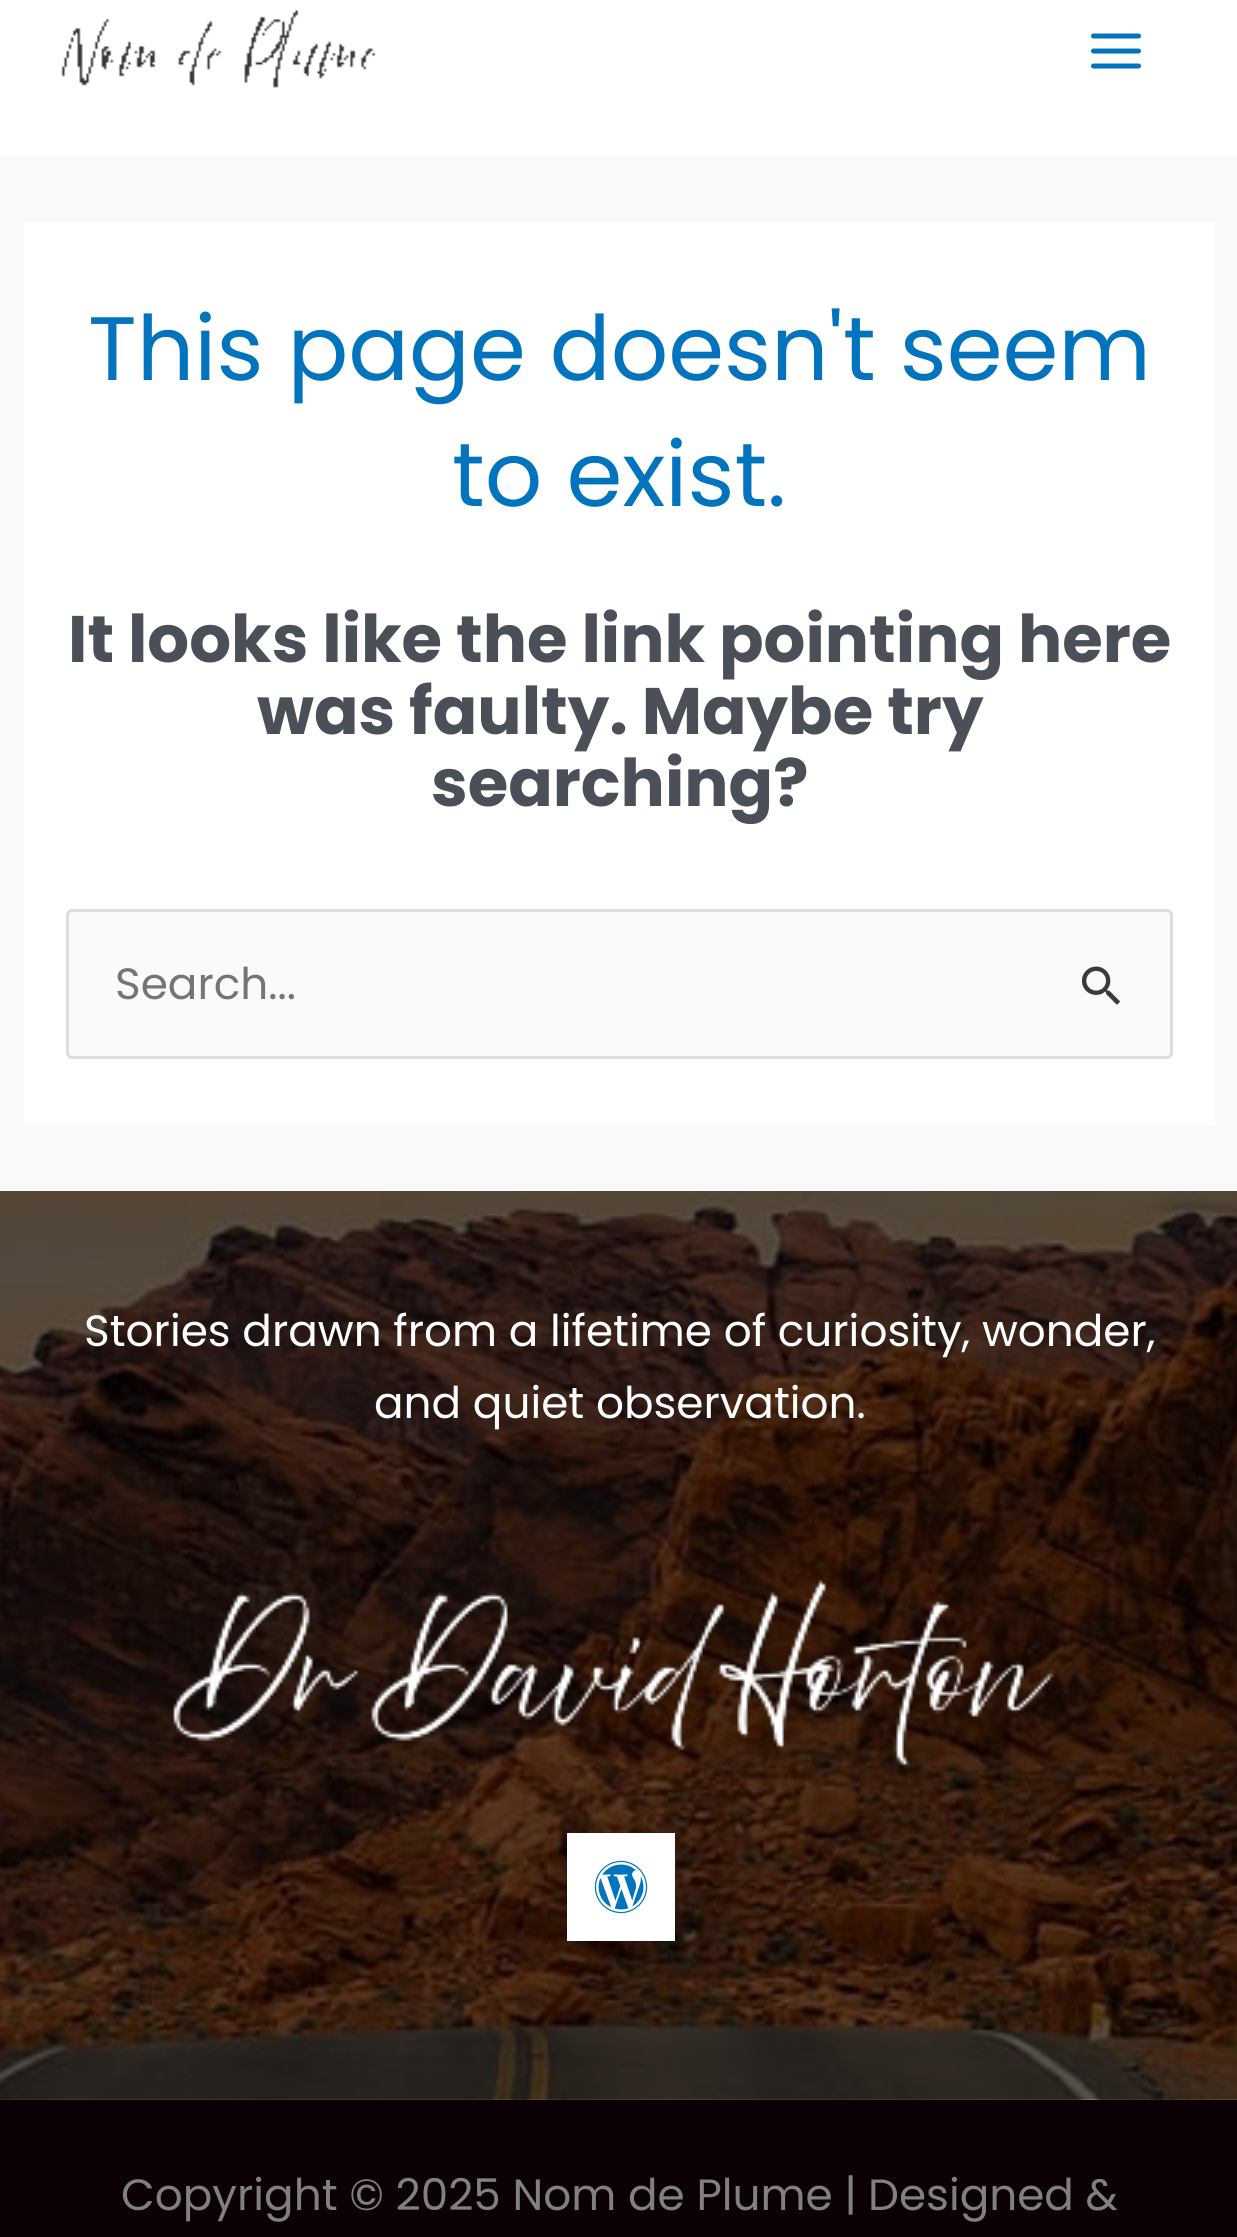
#include <cairo/cairo.h>
#include <math.h>
#include <stddef.h>

typedef struct { double x, y; const char *s; } line_t;
static cairo_t *cr;

static void rgb(unsigned color)
{
	cairo_set_source_rgb(cr, (color >> 16) / 255.0, (color >> 8 & 255) / 255.0, (color & 255) / 255.0);
}

static void rrect(double x, double y, double w, double h, double r)
{
	cairo_new_sub_path(cr);
	cairo_arc(cr, x + w - r, y + h - r, r, 0, M_PI / 2);
	cairo_arc(cr, x + r, y + h - r, r, M_PI / 2, M_PI);
	cairo_arc(cr, x + r, y + r, r, M_PI, 1.5 * M_PI);
	cairo_arc(cr, x + w - r, y + r, r, 1.5 * M_PI, 2 * M_PI);
	cairo_close_path(cr);
}

static void image(const char *path, double x, double y, double w, double h)
{
	cairo_surface_t *image = cairo_image_surface_create_from_png(path);
	cairo_save(cr);
	cairo_set_source_surface(cr, image, x, y);
	cairo_rectangle(cr, x, y, w, h);
	cairo_fill(cr);
	cairo_restore(cr);
	cairo_surface_destroy(image);
}

int main(void) {
	cairo_surface_t *surface = cairo_image_surface_create(CAIRO_FORMAT_RGB24, 1237, 2237);
	cr = cairo_create(surface);
	cairo_font_options_t *options = cairo_font_options_create();
	cairo_font_options_set_hint_metrics(options, CAIRO_HINT_METRICS_OFF);
	cairo_font_options_set_hint_style(options, CAIRO_HINT_STYLE_NONE);
	cairo_set_font_options(cr, options);
	cairo_set_miter_limit(cr, 4);
	rgb(0xf9f9f9);
	cairo_paint(cr);
	rgb(0xffffff);
	cairo_rectangle(cr, 0, 0, 1237, 156);
	cairo_fill(cr);
	image("img/1.png", 61, 10, 315, 78);
	image("img/2.png", 1091, 33, 50, 36);
	cairo_rectangle(cr, 24, 222, 1191, 903);
	cairo_fill(cr);
	rgb(0xfafafa);
	rrect(67.5, 910.5, 1104, 147, 4.5);
	cairo_fill_preserve(cr);
	rgb(0xdddddd);
	cairo_set_line_width(cr, 3);
	cairo_stroke(cr);
	image("img/3.png", 1081, 966, 40, 39);
	image("img/4.png", 0, 1191, 1237, 909);
	image("img/5.png", 171, 1580, 883, 188);
	rgb(0xffffff);
	cairo_rectangle(cr, 567, 1833, 108, 108);
	cairo_fill(cr);
	image("img/6.png", 594, 1860, 54, 54);
	rgb(0x0a0005);
	cairo_rectangle(cr, 0, 2100, 1237, 137);
	cairo_fill(cr);
	cairo_select_font_face(cr, "Poppins", CAIRO_FONT_SLANT_NORMAL, CAIRO_FONT_WEIGHT_NORMAL);
	cairo_set_font_size(cr, 90);
	rgb(0x0274be);
	cairo_move_to(cr, 88, 380);
	cairo_show_text(cr, "This page doesn't seem");
	cairo_move_to(cr, 452, 506);
	cairo_show_text(cr, "to exist.");
	cairo_select_font_face(cr, "Poppins", CAIRO_FONT_SLANT_NORMAL, CAIRO_FONT_WEIGHT_BOLD);
	cairo_set_font_size(cr, 65.7);
	rgb(0x4b4f58);
	{
		static const line_t items[] = {
			{68, 662, "It looks like the link pointing here"},
			{257, 734, "was faulty. Maybe try"},
			{431, 806, "searching?"},
		};
		for (size_t i = 0; i < sizeof items / sizeof *items; i++) {
			cairo_move_to(cr, items[i].x, items[i].y);
			cairo_show_text(cr, items[i].s);
		}
	}
	cairo_select_font_face(cr, "Poppins", CAIRO_FONT_SLANT_NORMAL, CAIRO_FONT_WEIGHT_NORMAL);
	cairo_set_font_size(cr, 43.75);
	rgb(0x757575);
	cairo_move_to(cr, 115, 999);
	cairo_show_text(cr, "Search...");
	rgb(0xffffff);
	cairo_move_to(cr, 84, 1346);
	cairo_show_text(cr, "Stories drawn from a lifetime of curiosity, wonder,");
	cairo_move_to(cr, 374, 1418);
	cairo_show_text(cr, "and quiet observation.");
	rgb(0x808080);
	cairo_move_to(cr, 121, 2210);
	cairo_show_text(cr, "Copyright © 2025 Nom de Plume |");
	cairo_move_to(cr, 868, 2210);
	cairo_show_text(cr, "Designed &");
	cairo_surface_write_to_png(surface, "page.png");
	cairo_font_options_destroy(options);
	cairo_destroy(cr);
	cairo_surface_destroy(surface);
	return 0;
}
